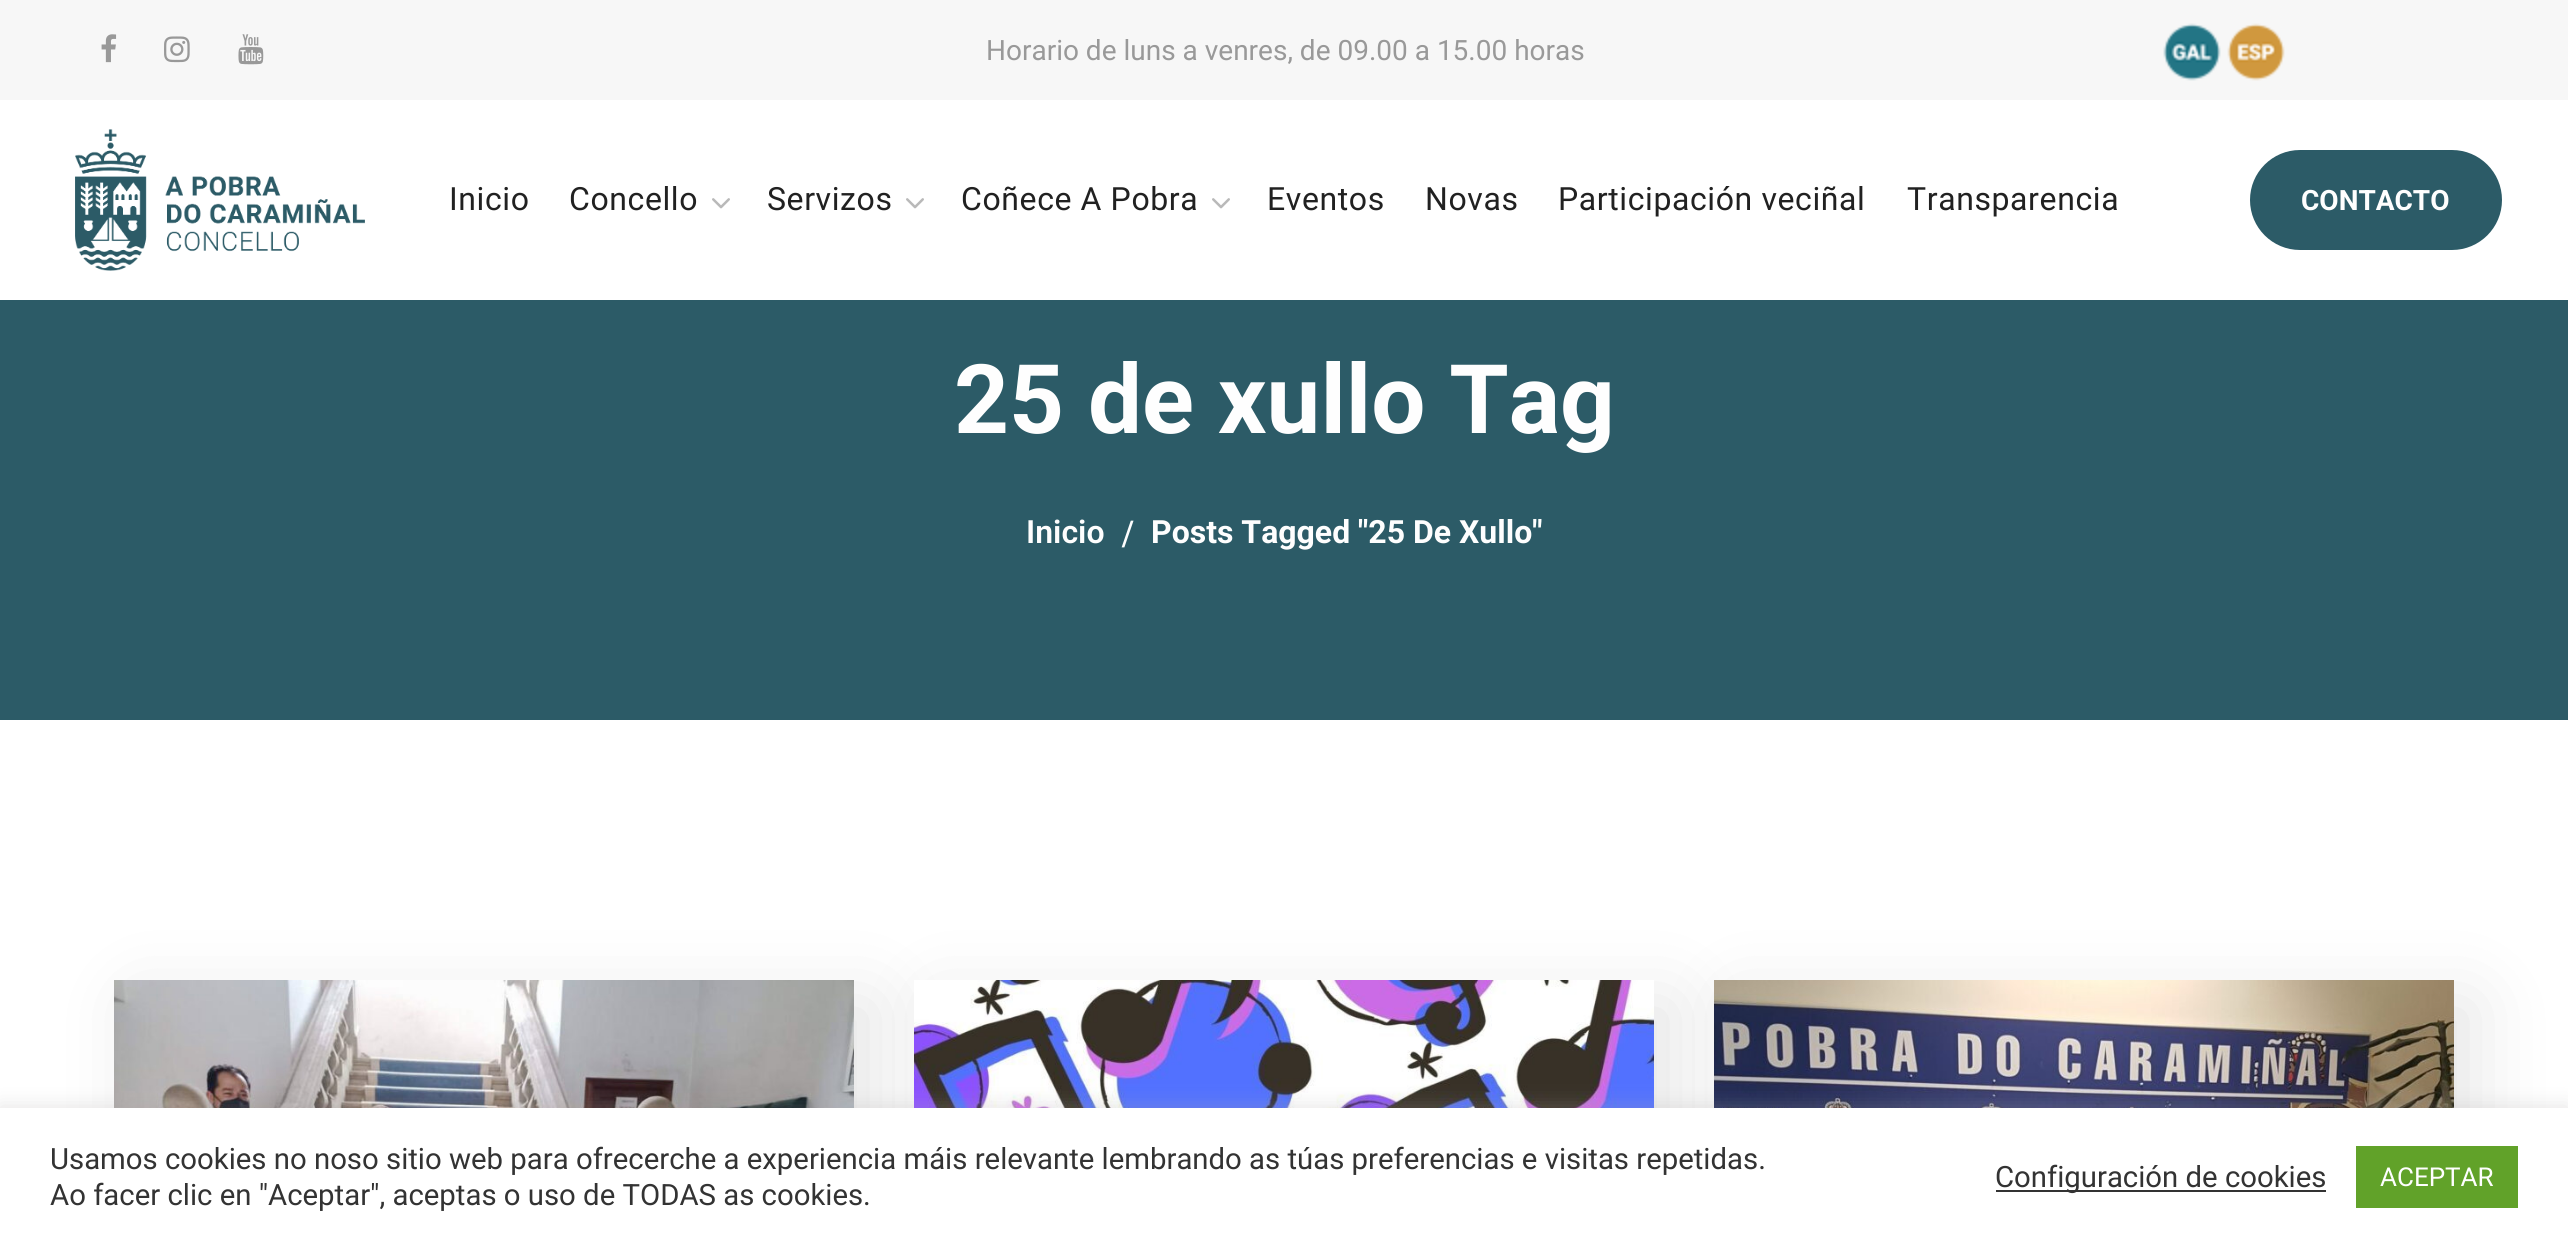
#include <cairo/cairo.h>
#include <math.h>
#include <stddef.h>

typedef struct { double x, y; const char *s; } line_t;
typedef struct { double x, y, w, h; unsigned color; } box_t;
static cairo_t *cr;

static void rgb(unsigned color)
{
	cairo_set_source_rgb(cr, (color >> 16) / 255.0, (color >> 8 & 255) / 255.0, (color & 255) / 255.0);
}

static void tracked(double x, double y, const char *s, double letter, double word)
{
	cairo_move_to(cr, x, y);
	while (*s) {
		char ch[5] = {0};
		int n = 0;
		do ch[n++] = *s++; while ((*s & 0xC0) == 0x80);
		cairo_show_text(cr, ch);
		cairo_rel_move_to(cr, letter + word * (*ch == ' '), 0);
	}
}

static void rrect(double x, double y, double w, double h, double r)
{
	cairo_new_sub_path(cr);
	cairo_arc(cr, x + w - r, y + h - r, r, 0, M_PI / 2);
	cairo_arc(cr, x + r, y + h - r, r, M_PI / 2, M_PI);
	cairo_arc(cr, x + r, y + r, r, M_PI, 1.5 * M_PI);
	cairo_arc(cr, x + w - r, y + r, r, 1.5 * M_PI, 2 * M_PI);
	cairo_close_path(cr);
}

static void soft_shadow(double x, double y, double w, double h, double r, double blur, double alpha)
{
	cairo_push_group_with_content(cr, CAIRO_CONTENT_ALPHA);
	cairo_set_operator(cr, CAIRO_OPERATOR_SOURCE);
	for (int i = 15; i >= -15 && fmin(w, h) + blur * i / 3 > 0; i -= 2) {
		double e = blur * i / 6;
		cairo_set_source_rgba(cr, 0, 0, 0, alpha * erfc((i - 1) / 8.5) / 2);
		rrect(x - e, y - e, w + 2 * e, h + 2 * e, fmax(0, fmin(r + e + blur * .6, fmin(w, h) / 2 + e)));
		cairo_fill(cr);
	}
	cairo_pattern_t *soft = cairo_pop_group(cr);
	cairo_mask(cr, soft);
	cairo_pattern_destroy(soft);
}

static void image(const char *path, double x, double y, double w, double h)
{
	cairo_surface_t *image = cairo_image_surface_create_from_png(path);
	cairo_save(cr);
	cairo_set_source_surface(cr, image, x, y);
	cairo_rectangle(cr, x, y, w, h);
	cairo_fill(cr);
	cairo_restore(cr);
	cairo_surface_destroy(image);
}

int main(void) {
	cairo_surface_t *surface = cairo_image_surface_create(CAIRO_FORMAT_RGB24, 2568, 1245);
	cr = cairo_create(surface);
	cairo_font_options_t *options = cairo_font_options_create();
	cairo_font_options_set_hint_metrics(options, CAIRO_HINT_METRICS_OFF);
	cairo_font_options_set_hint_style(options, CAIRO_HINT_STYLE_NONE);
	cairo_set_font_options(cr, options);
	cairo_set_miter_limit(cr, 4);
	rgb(0xffffff);
	cairo_paint(cr);
	rgb(0xf7f7f7);
	cairo_rectangle(cr, 0, 0, 2568, 100);
	cairo_fill(cr);
	image("img/1.png", 101, 34, 16, 29);
	image("img/2.png", 164, 36, 26, 27);
	image("img/3.png", 238, 34, 26, 31);
	image("img/4.png", 75, 129, 290, 142);
	image("img/5.png", 2163, 23, 58, 58);
	image("img/6.png", 2227, 23, 58, 58);
	image("img/7.png", 712, 198, 18, 11);
	image("img/7.png", 906, 198, 18, 11);
	image("img/7.png", 1212, 198, 18, 11);
	rgb(0x2c5b67);
	rrect(2249, 149, 254, 102, 51);
	cairo_fill_preserve(cr);
	rgb(0xffffff);
	cairo_stroke(cr);
	rgb(0x2c5b67);
	cairo_rectangle(cr, 0, 300, 2568, 420);
	cairo_fill(cr);
	rgb(0x000000);
	soft_shadow(136, 1000, 740, 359, 0, 38, 0.1);
	soft_shadow(936, 1000, 740, 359, 0, 38, 0.1);
	image("img/8.png", 114, 980, 740, 128);
	soft_shadow(1736, 1000, 740, 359, 0, 38, 0.1);
	image("img/9.png", 914, 980, 740, 128);
	image("img/10.png", 1714, 980, 740, 128);
	rgb(0xacabab);
	soft_shadow(0, 1106, 2568, 138, 0, 10, 0.3);
	{
		static const box_t items[] = {
			{0, 1108, 2568, 137, 0xffffff},
			{1996, 1190, 330, 2, 0x333333},
			{2356, 1146, 162, 62, 0x61a229},
		};
		for (size_t i = 0; i < sizeof items / sizeof *items; i++) {
			rgb(items[i].color);
			cairo_rectangle(cr, items[i].x, items[i].y, items[i].w, items[i].h);
			cairo_fill(cr);
		}
	}
	cairo_select_font_face(cr, "Roboto", CAIRO_FONT_SLANT_NORMAL, CAIRO_FONT_WEIGHT_NORMAL);
	cairo_set_font_size(cr, 28);
	rgb(0x999999);
	cairo_move_to(cr, 986, 60);
	cairo_show_text(cr, "Horario de luns a venres, de 09.00 a 15.00 horas");
	cairo_set_font_size(cr, 32);
	rgb(0x212121);
	{
		static const line_t items[] = {
			{449, 210, "Inicio"},
			{569, 210, "Concello"},
			{767, 210, "Servizos"},
			{961, 210, "Coñece A Pobra"},
			{1267, 210, "Eventos"},
			{1425, 210, "Novas"},
			{1558, 210, "Participación veciñal"},
			{1907, 210, "Transparencia"},
		};
		for (size_t i = 0; i < sizeof items / sizeof *items; i++) {
			tracked(items[i].x, items[i].y, items[i].s, 0.6, 0);
		}
	}
	cairo_select_font_face(cr, "Roboto", CAIRO_FONT_SLANT_NORMAL, CAIRO_FONT_WEIGHT_BOLD);
	cairo_set_font_size(cr, 28);
	rgb(0xfefefe);
	cairo_move_to(cr, 2301, 210);
	cairo_show_text(cr, "CONTACTO");
	cairo_set_font_size(cr, 96);
	cairo_move_to(cr, 954, 433);
	cairo_show_text(cr, "25 de xullo Tag");
	cairo_select_font_face(cr, "Roboto SemiBold", CAIRO_FONT_SLANT_NORMAL, CAIRO_FONT_WEIGHT_NORMAL);
	cairo_set_font_size(cr, 32);
	cairo_move_to(cr, 1026, 543);
	cairo_show_text(cr, "Inicio");
	cairo_select_font_face(cr, "Liberation Serif", CAIRO_FONT_SLANT_NORMAL, CAIRO_FONT_WEIGHT_BOLD);
	cairo_set_font_size(cr, 40);
	cairo_move_to(cr, 1122, 547);
	cairo_show_text(cr, "/");
	cairo_select_font_face(cr, "Roboto", CAIRO_FONT_SLANT_NORMAL, CAIRO_FONT_WEIGHT_BOLD);
	cairo_set_font_size(cr, 32);
	cairo_move_to(cr, 1151, 543);
	cairo_show_text(cr, "Posts Tagged \"25 De Xullo\"");
	cairo_select_font_face(cr, "Roboto", CAIRO_FONT_SLANT_NORMAL, CAIRO_FONT_WEIGHT_NORMAL);
	cairo_set_font_size(cr, 29.33);
	rgb(0x333333);
	{
		static const line_t items[] = {
			{50, 1169, "Usamos cookies no noso sitio web para ofrecerche a experiencia máis relevante lembrando as túas preferencias e visitas repetidas."},
			{50, 1205, "Ao facer clic en \"Aceptar\", aceptas o uso de TODAS as cookies."},
			{1995, 1187, "Configuración de cookies"},
		};
		for (size_t i = 0; i < sizeof items / sizeof *items; i++) {
			cairo_move_to(cr, items[i].x, items[i].y);
			cairo_show_text(cr, items[i].s);
		}
	}
	cairo_set_font_size(cr, 26);
	rgb(0xfefefe);
	cairo_move_to(cr, 2380, 1186);
	cairo_show_text(cr, "ACEPTAR");
	cairo_surface_write_to_png(surface, "page.png");
	cairo_font_options_destroy(options);
	cairo_destroy(cr);
	cairo_surface_destroy(surface);
	return 0;
}
